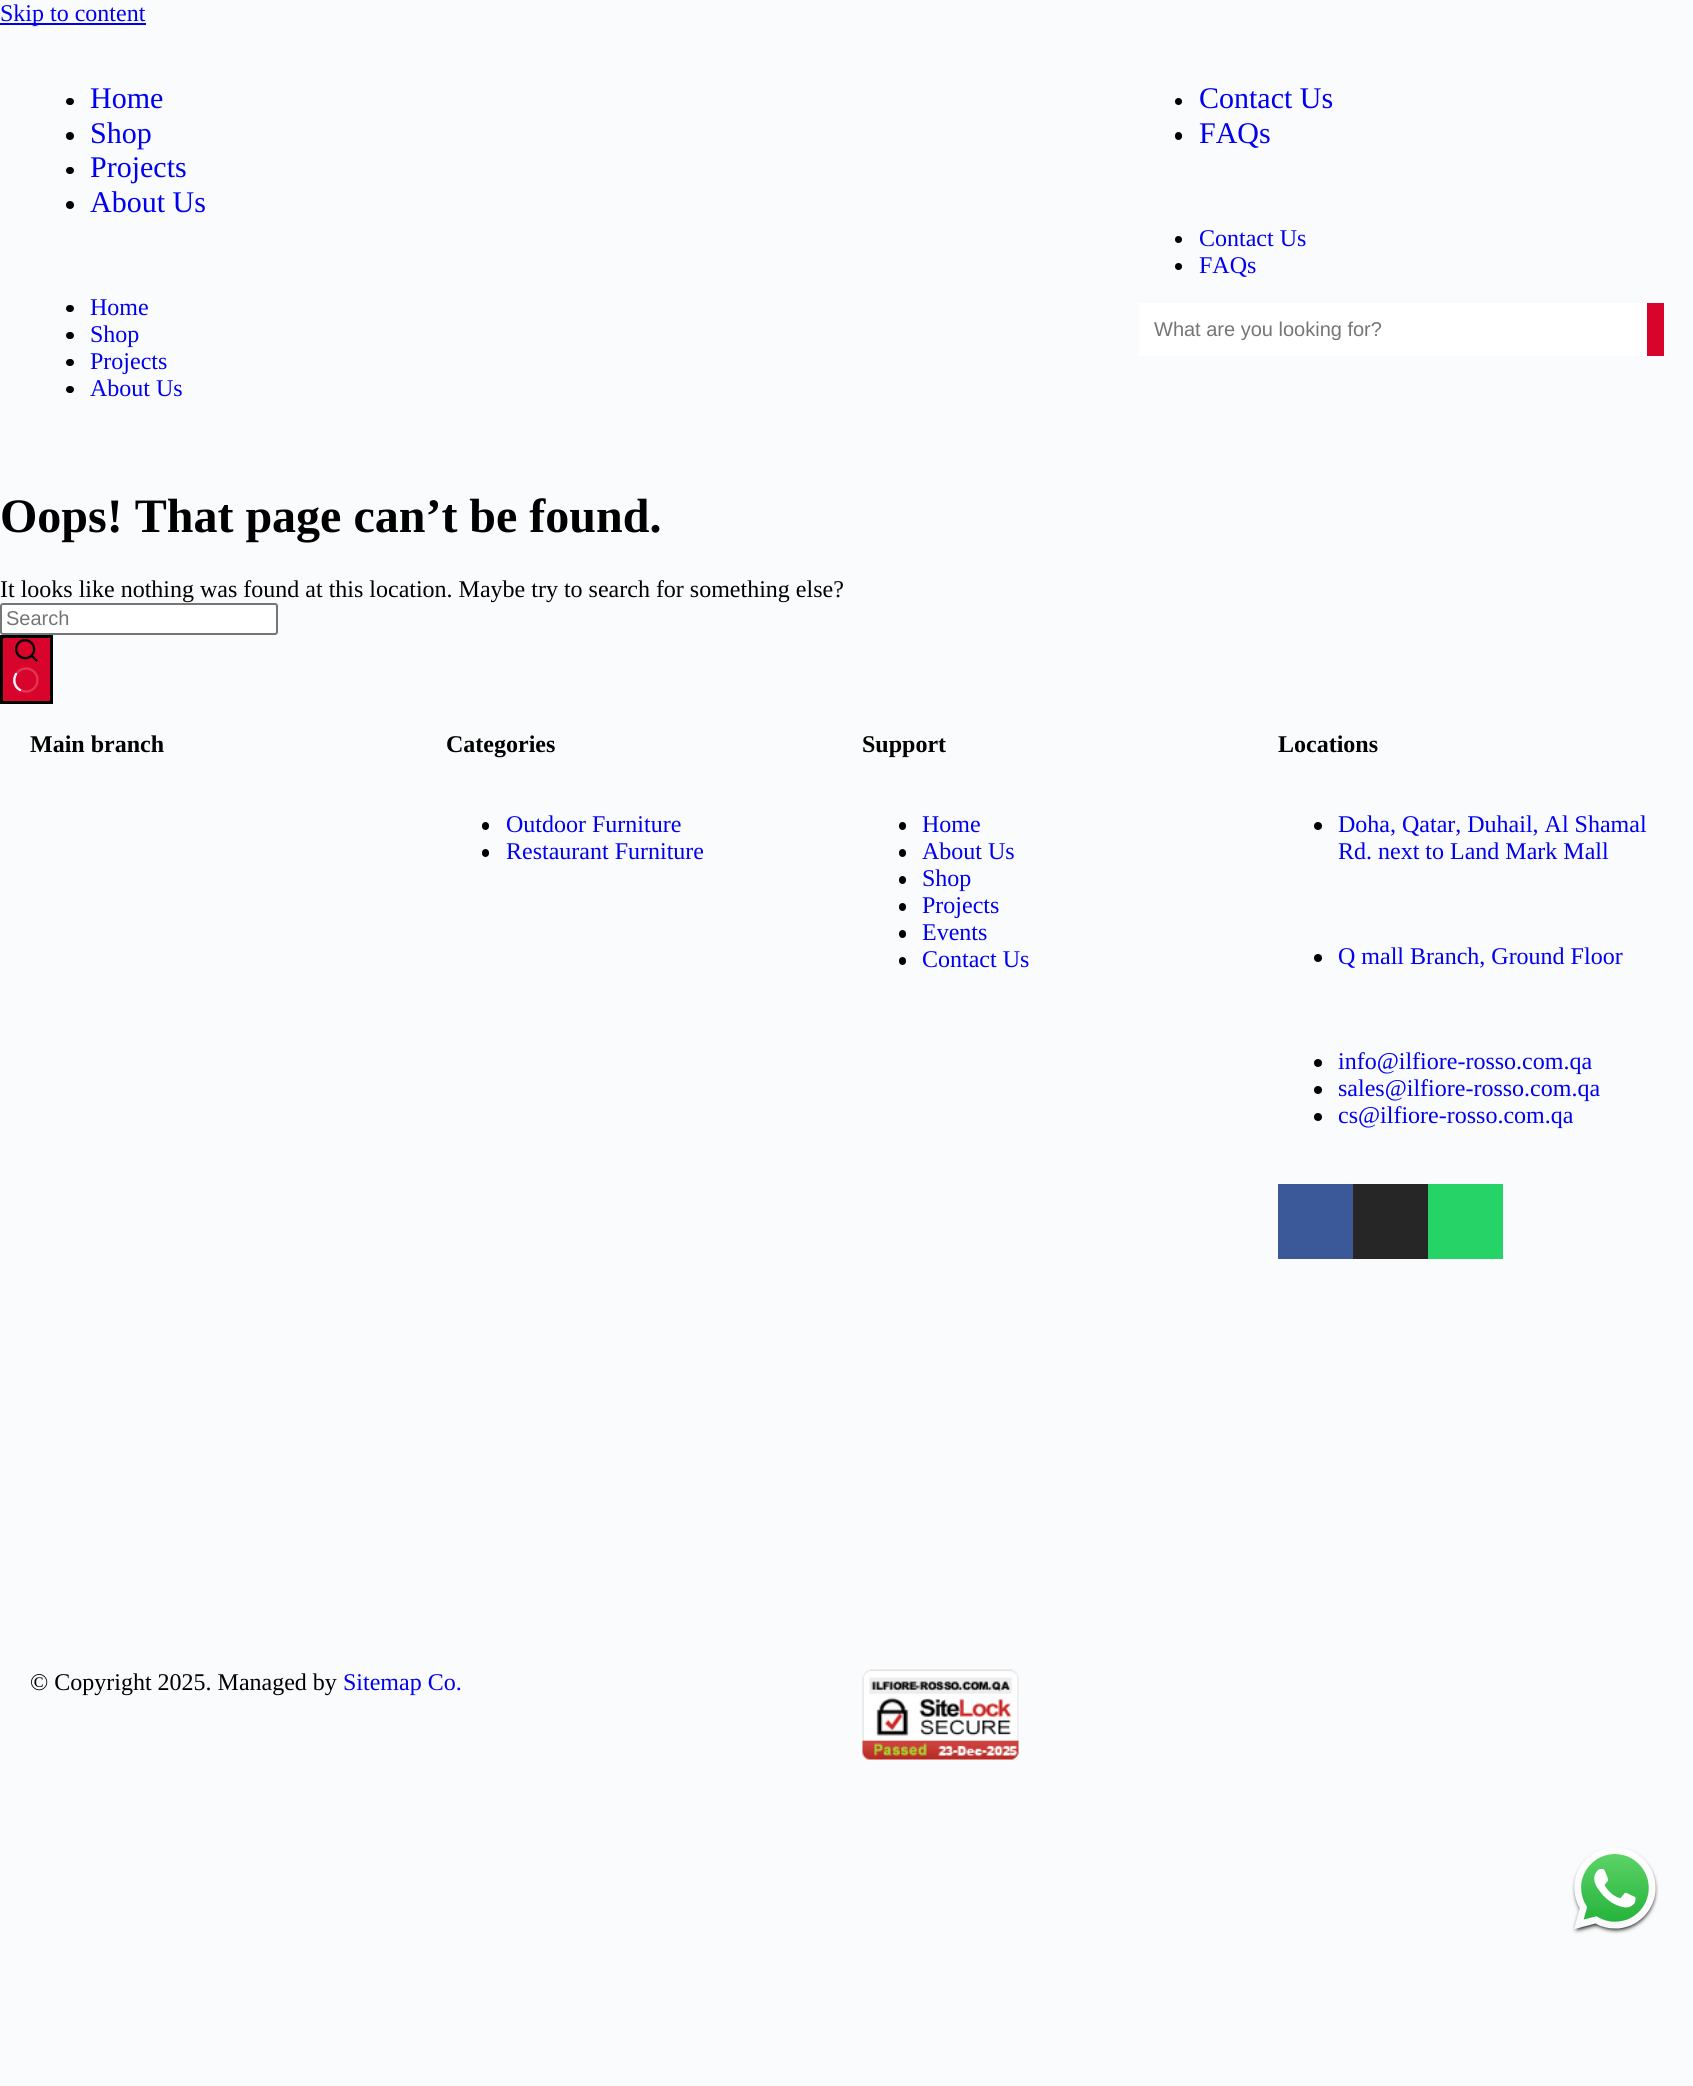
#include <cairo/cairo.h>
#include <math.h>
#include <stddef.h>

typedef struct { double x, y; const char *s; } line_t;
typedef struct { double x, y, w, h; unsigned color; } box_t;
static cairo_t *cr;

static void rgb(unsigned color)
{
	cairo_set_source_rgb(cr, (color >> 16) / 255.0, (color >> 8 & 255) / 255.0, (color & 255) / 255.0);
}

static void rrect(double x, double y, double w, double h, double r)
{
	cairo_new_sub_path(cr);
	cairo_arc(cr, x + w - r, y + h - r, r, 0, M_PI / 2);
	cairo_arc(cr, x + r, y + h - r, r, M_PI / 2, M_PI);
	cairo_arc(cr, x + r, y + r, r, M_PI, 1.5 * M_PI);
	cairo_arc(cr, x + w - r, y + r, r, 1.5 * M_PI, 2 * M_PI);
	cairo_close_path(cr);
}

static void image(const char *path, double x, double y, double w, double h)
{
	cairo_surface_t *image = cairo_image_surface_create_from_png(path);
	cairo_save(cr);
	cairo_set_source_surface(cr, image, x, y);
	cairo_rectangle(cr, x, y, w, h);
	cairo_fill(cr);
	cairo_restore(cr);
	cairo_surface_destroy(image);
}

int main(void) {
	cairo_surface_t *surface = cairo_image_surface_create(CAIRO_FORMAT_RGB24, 1693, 2086);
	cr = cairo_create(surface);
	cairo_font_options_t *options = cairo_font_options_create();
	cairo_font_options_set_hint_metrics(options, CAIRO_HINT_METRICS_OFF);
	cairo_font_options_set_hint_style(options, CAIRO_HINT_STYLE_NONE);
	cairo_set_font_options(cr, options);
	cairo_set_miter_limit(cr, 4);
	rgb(0xfafbfc);
	cairo_paint(cr);
	rgb(0x0000ee);
	cairo_rectangle(cr, 0, 23, 146, 2);
	cairo_fill(cr);
	rgb(0x000000);
	rrect(66, 98, 8, 7, 3.5);
	cairo_fill(cr);
	cairo_arc(cr, 70, 136, 4, 0, 2 * M_PI);
	cairo_fill(cr);
	rrect(66, 167, 8, 7, 3.5);
	cairo_fill(cr);
	cairo_arc(cr, 70, 205, 4, 0, 2 * M_PI);
	cairo_fill(cr);
	rrect(66, 305, 8, 7, 3.5);
	cairo_fill(cr);
	rrect(66, 332, 8, 7, 3.5);
	cairo_fill(cr);
	rrect(66, 359, 8, 7, 3.5);
	cairo_fill(cr);
	rrect(66, 386, 8, 7, 3.5);
	cairo_fill(cr);
	cairo_arc(cr, 1178.5, 101.5, 3.5, 0, 2 * M_PI);
	cairo_fill(cr);
	rrect(1175, 132, 7, 8, 3.5);
	cairo_fill(cr);
	cairo_arc(cr, 1178.5, 239.5, 3.5, 0, 2 * M_PI);
	cairo_fill(cr);
	cairo_arc(cr, 1178.5, 266.5, 3.5, 0, 2 * M_PI);
	cairo_fill(cr);
	rgb(0xffffff);
	cairo_rectangle(cr, 1139, 303, 508, 53);
	cairo_fill(cr);
	rgb(0xd9042b);
	cairo_rectangle(cr, 1647, 303, 17, 53);
	cairo_fill(cr);
	rgb(0xffffff);
	rrect(1, 604, 276, 30, 2);
	cairo_fill_preserve(cr);
	rgb(0x767676);
	cairo_stroke(cr);
	rgb(0xd9042b);
	cairo_rectangle(cr, 1.5, 636.5, 50, 66);
	cairo_fill_preserve(cr);
	rgb(0x000000);
	cairo_set_line_width(cr, 3);
	cairo_stroke(cr);
	image("img/1.png", 15, 639, 23, 23);
	cairo_arc(cr, 26, 680, 11.5, 0, 2 * M_PI);
	rgb(0xe13655);
	cairo_set_line_width(cr, 2.3);
	cairo_stroke(cr);
	cairo_new_path(cr);
	cairo_move_to(cr, 20, 690);
	cairo_curve_to(cr, 14.5, 687, 12.5, 680, 16, 674);
	rgb(0xffffff);
	cairo_set_line_cap(cr, CAIRO_LINE_CAP_ROUND);
	cairo_stroke(cr);
	rgb(0x000000);
	rrect(482, 822, 7, 8, 3.5);
	cairo_fill(cr);
	rrect(482, 849, 7, 8, 3.5);
	cairo_fill(cr);
	rrect(899, 822, 7, 8, 3.5);
	cairo_fill(cr);
	rrect(899, 849, 7, 8, 3.5);
	cairo_fill(cr);
	rrect(899, 876, 7, 8, 3.5);
	cairo_fill(cr);
	rrect(899, 903, 7, 8, 3.5);
	cairo_fill(cr);
	rrect(899, 930, 7, 8, 3.5);
	cairo_fill(cr);
	rrect(899, 957, 7, 8, 3.5);
	cairo_fill(cr);
	cairo_arc(cr, 1318, 826, 4, 0, 2 * M_PI);
	cairo_fill(cr);
	cairo_arc(cr, 1318, 958, 4, 0, 2 * M_PI);
	cairo_fill(cr);
	cairo_arc(cr, 1318, 1063, 4, 0, 2 * M_PI);
	cairo_fill(cr);
	cairo_arc(cr, 1318, 1090, 4, 0, 2 * M_PI);
	cairo_fill(cr);
	cairo_arc(cr, 1318, 1117, 4, 0, 2 * M_PI);
	cairo_fill(cr);
	{
		static const box_t items[] = {
			{1278, 1184, 75, 75, 0x3b5998},
			{1353, 1184, 75, 75, 0x262626},
			{1428, 1184, 75, 75, 0x25d366},
		};
		for (size_t i = 0; i < sizeof items / sizeof *items; i++) {
			rgb(items[i].color);
			cairo_rectangle(cr, items[i].x, items[i].y, items[i].w, items[i].h);
			cairo_fill(cr);
		}
	}
	image("img/2.png", 862, 1669, 157, 91);
	image("img/3.png", 1572, 1847, 87, 87);
	cairo_select_font_face(cr, "Liberation Serif", CAIRO_FONT_SLANT_NORMAL, CAIRO_FONT_WEIGHT_NORMAL);
	cairo_set_font_size(cr, 24);
	rgb(0x0000ee);
	cairo_move_to(cr, 0, 21);
	cairo_show_text(cr, "Skip to content");
	cairo_set_font_size(cr, 30);
	{
		static const line_t items[] = {
			{90, 108, "Home"},
			{90, 143, "Shop"},
			{90, 177, "Projects"},
			{90, 212, "About Us"},
		};
		for (size_t i = 0; i < sizeof items / sizeof *items; i++) {
			cairo_move_to(cr, items[i].x, items[i].y);
			cairo_show_text(cr, items[i].s);
		}
	}
	cairo_set_font_size(cr, 24);
	{
		static const line_t items[] = {
			{90, 315, "Home"},
			{90, 342, "Shop"},
			{90, 369, "Projects"},
			{90, 396, "About Us"},
		};
		for (size_t i = 0; i < sizeof items / sizeof *items; i++) {
			cairo_move_to(cr, items[i].x, items[i].y);
			cairo_show_text(cr, items[i].s);
		}
	}
	cairo_set_font_size(cr, 30);
	cairo_move_to(cr, 1199, 108);
	cairo_show_text(cr, "Contact Us");
	cairo_move_to(cr, 1199, 143);
	cairo_show_text(cr, "FAQs");
	cairo_set_font_size(cr, 24);
	cairo_move_to(cr, 1199, 246);
	cairo_show_text(cr, "Contact Us");
	cairo_move_to(cr, 1199, 273);
	cairo_show_text(cr, "FAQs");
	cairo_select_font_face(cr, "Liberation Sans", CAIRO_FONT_SLANT_NORMAL, CAIRO_FONT_WEIGHT_NORMAL);
	cairo_set_font_size(cr, 20);
	rgb(0x757575);
	cairo_move_to(cr, 1154, 336);
	cairo_show_text(cr, "What are you looking for?");
	cairo_select_font_face(cr, "Liberation Serif", CAIRO_FONT_SLANT_NORMAL, CAIRO_FONT_WEIGHT_BOLD);
	cairo_set_font_size(cr, 48);
	rgb(0x000000);
	cairo_move_to(cr, 0, 532);
	cairo_show_text(cr, "Oops! That page can’t be found.");
	cairo_select_font_face(cr, "Liberation Serif", CAIRO_FONT_SLANT_NORMAL, CAIRO_FONT_WEIGHT_NORMAL);
	cairo_set_font_size(cr, 24);
	cairo_move_to(cr, 0, 597);
	cairo_show_text(cr, "It looks like nothing was found at this location. Maybe try to search for something else?");
	cairo_select_font_face(cr, "Liberation Sans", CAIRO_FONT_SLANT_NORMAL, CAIRO_FONT_WEIGHT_NORMAL);
	cairo_set_font_size(cr, 20);
	rgb(0x757575);
	cairo_move_to(cr, 6, 625);
	cairo_show_text(cr, "Search");
	cairo_select_font_face(cr, "Liberation Serif", CAIRO_FONT_SLANT_NORMAL, CAIRO_FONT_WEIGHT_BOLD);
	cairo_set_font_size(cr, 24);
	rgb(0x000000);
	cairo_move_to(cr, 30, 752);
	cairo_show_text(cr, "Main branch");
	cairo_move_to(cr, 446, 752);
	cairo_show_text(cr, "Categories");
	cairo_select_font_face(cr, "Liberation Serif", CAIRO_FONT_SLANT_NORMAL, CAIRO_FONT_WEIGHT_NORMAL);
	rgb(0x0000ee);
	cairo_move_to(cr, 506, 832);
	cairo_show_text(cr, "Outdoor Furniture");
	cairo_move_to(cr, 506, 859);
	cairo_show_text(cr, "Restaurant Furniture");
	cairo_select_font_face(cr, "Liberation Serif", CAIRO_FONT_SLANT_NORMAL, CAIRO_FONT_WEIGHT_BOLD);
	rgb(0x000000);
	cairo_move_to(cr, 862, 752);
	cairo_show_text(cr, "Support");
	cairo_select_font_face(cr, "Liberation Serif", CAIRO_FONT_SLANT_NORMAL, CAIRO_FONT_WEIGHT_NORMAL);
	rgb(0x0000ee);
	{
		static const line_t items[] = {
			{922, 832, "Home"},
			{922, 859, "About Us"},
			{922, 886, "Shop"},
			{922, 913, "Projects"},
			{922, 940, "Events"},
			{922, 967, "Contact Us"},
		};
		for (size_t i = 0; i < sizeof items / sizeof *items; i++) {
			cairo_move_to(cr, items[i].x, items[i].y);
			cairo_show_text(cr, items[i].s);
		}
	}
	cairo_select_font_face(cr, "Liberation Serif", CAIRO_FONT_SLANT_NORMAL, CAIRO_FONT_WEIGHT_BOLD);
	rgb(0x000000);
	cairo_move_to(cr, 1278, 752);
	cairo_show_text(cr, "Locations");
	cairo_select_font_face(cr, "Liberation Serif", CAIRO_FONT_SLANT_NORMAL, CAIRO_FONT_WEIGHT_NORMAL);
	rgb(0x0000ee);
	{
		static const line_t items[] = {
			{1338, 832, "Doha, Qatar, Duhail, Al Shamal"},
			{1338, 859, "Rd. next to Land Mark Mall"},
			{1338, 964, "Q mall Branch, Ground Floor"},
			{1338, 1069, "info@ilfiore-rosso.com.qa"},
			{1338, 1096, "sales@ilfiore-rosso.com.qa"},
			{1338, 1123, "cs@ilfiore-rosso.com.qa"},
		};
		for (size_t i = 0; i < sizeof items / sizeof *items; i++) {
			cairo_move_to(cr, items[i].x, items[i].y);
			cairo_show_text(cr, items[i].s);
		}
	}
	rgb(0x000000);
	cairo_move_to(cr, 30, 1690);
	cairo_show_text(cr, "© Copyright 2025. Managed by");
	rgb(0x0000ee);
	cairo_move_to(cr, 343, 1690);
	cairo_show_text(cr, "Sitemap Co.");
	cairo_surface_write_to_png(surface, "page.png");
	cairo_font_options_destroy(options);
	cairo_destroy(cr);
	cairo_surface_destroy(surface);
	return 0;
}
